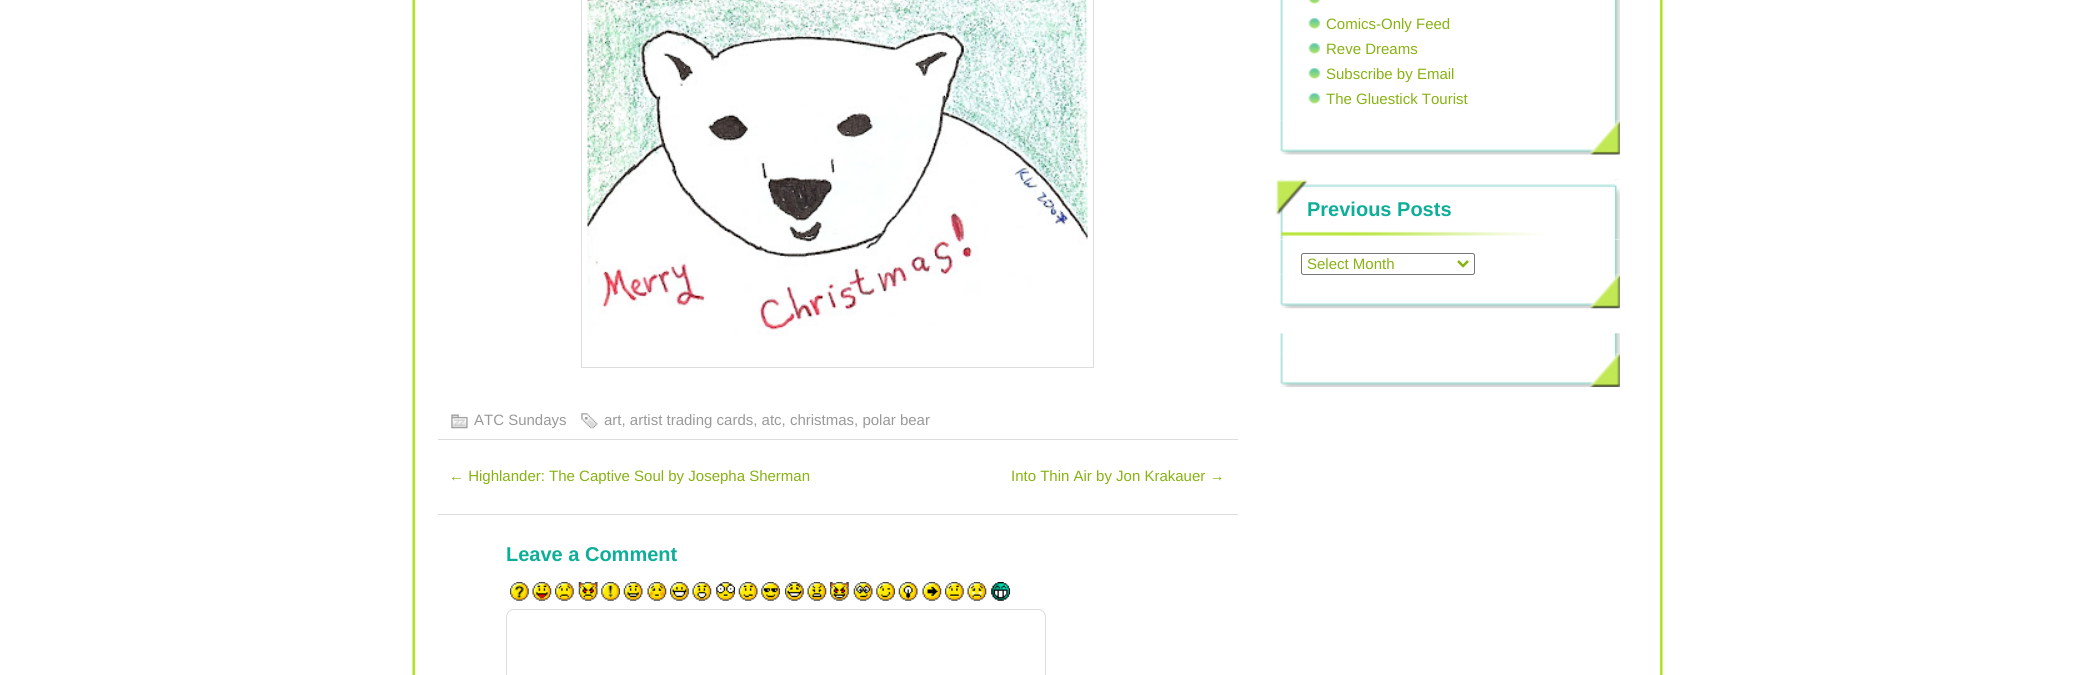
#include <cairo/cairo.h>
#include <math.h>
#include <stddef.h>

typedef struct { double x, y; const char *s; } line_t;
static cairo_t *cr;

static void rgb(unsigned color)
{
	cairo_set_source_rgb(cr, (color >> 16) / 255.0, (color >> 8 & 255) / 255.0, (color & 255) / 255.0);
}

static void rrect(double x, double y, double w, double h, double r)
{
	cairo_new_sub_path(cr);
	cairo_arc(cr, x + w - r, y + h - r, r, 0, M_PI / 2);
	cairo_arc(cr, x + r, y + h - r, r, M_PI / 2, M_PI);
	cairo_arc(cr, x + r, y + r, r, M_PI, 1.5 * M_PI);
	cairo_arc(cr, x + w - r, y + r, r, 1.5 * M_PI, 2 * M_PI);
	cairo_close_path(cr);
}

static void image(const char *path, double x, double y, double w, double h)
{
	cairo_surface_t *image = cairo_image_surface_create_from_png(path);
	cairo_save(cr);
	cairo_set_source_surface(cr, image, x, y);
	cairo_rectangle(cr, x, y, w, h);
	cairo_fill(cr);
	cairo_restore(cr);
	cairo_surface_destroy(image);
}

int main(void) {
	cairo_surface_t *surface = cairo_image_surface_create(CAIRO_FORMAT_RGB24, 2073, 675);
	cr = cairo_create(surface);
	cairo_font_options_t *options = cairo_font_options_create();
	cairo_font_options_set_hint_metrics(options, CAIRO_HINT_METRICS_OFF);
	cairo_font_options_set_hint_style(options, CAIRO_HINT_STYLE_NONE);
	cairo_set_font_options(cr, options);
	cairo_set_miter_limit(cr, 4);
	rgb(0xffffff);
	cairo_paint(cr);
	image("img/1.png", 412, 0, 1251, 675);
	image("img/2.png", 1280, 0, 340, 121);
	image("img/3.png", 1308, 0, 12, 4);
	image("img/4.png", 1308, 18, 13, 11);
	image("img/4.png", 1308, 43, 13, 11);
	image("img/4.png", 1308, 68, 13, 11);
	image("img/4.png", 1308, 93, 13, 11);
	image("img/5.png", 1280, 120, 340, 35);
	image("img/6.png", 1280, 179, 340, 96);
	rgb(0xffffff);
	cairo_rectangle(cr, 1280, 180, 340, 60);
	cairo_fill(cr);
	image("img/7.png", 1276, 179, 344, 61);
	image("img/8.png", 1279, 274, 341, 35);
	rrect(1301.5, 253.5, 173, 21, 2);
	rgb(0x767676);
	cairo_set_line_width(cr, 1);
	cairo_stroke(cr);
	cairo_new_path(cr);
	cairo_move_to(cr, 1458, 261);
	cairo_line_to(cr, 1463, 266);
	cairo_line_to(cr, 1468, 261);
	rgb(0x87b212);
	cairo_set_line_width(cr, 2.5);
	cairo_stroke(cr);
	image("img/9.png", 1280, 333, 340, 21);
	image("img/10.png", 1280, 353, 340, 34);
	cairo_rectangle(cr, 581.5, -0.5, 512, 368);
	rgb(0xdddddd);
	cairo_set_line_width(cr, 1);
	cairo_stroke(cr);
	image("img/11.png", 587, 0, 501, 336);
	image("img/12.png", 451, 414, 17, 15);
	image("img/13.png", 581, 413, 17, 16);
	cairo_rectangle(cr, 438, 439, 800, 1);
	cairo_fill(cr);
	cairo_rectangle(cr, 438, 514, 800, 1);
	cairo_fill(cr);
	image("img/14.png", 510, 582, 19, 19);
	image("img/15.png", 532, 582, 20, 19);
	image("img/16.png", 555, 582, 19, 19);
	image("img/17.png", 578, 582, 20, 19);
	image("img/18.png", 601, 582, 19, 19);
	image("img/19.png", 623, 582, 20, 19);
	image("img/20.png", 647, 582, 20, 19);
	image("img/21.png", 670, 582, 19, 19);
	image("img/22.png", 692, 582, 20, 19);
	image("img/23.png", 716, 582, 19, 19);
	image("img/24.png", 738, 582, 20, 19);
	image("img/25.png", 761, 582, 19, 19);
	image("img/26.png", 785, 582, 19, 19);
	image("img/27.png", 807, 582, 20, 19);
	image("img/28.png", 830, 582, 19, 19);
	image("img/29.png", 853, 582, 20, 19);
	image("img/30.png", 876, 582, 19, 19);
	image("img/31.png", 898, 582, 20, 19);
	image("img/32.png", 922, 582, 20, 19);
	image("img/33.png", 945, 582, 19, 19);
	image("img/34.png", 967, 582, 20, 19);
	image("img/35.png", 991, 582, 19, 19);
	rrect(506.5, 609.5, 539, 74, 7.5);
	cairo_stroke(cr);
	cairo_select_font_face(cr, "Liberation Sans", CAIRO_FONT_SLANT_NORMAL, CAIRO_FONT_WEIGHT_NORMAL);
	cairo_set_font_size(cr, 15);
	rgb(0x87b212);
	{
		static const line_t items[] = {
			{1326, 29, "Comics-Only Feed"},
			{1326, 54, "Reve Dreams"},
			{1326, 79, "Subscribe by Email"},
			{1326, 104, "The Gluestick Tourist"},
		};
		for (size_t i = 0; i < sizeof items / sizeof *items; i++) {
			cairo_move_to(cr, items[i].x, items[i].y);
			cairo_show_text(cr, items[i].s);
		}
	}
	cairo_select_font_face(cr, "Liberation Sans", CAIRO_FONT_SLANT_NORMAL, CAIRO_FONT_WEIGHT_BOLD);
	cairo_set_font_size(cr, 20);
	rgb(0x0eae99);
	cairo_move_to(cr, 1307, 216);
	cairo_show_text(cr, "Previous Posts");
	cairo_select_font_face(cr, "Liberation Sans", CAIRO_FONT_SLANT_NORMAL, CAIRO_FONT_WEIGHT_NORMAL);
	cairo_set_font_size(cr, 15);
	rgb(0x87b212);
	cairo_move_to(cr, 1307, 269);
	cairo_show_text(cr, "Select Month");
	rgb(0x999999);
	cairo_move_to(cr, 474, 425);
	cairo_show_text(cr, "ATC Sundays");
	cairo_move_to(cr, 604, 425);
	cairo_show_text(cr, "art, artist trading cards, atc, christmas, polar bear");
	rgb(0x87b212);
	cairo_move_to(cr, 449, 481);
	cairo_show_text(cr, "← Highlander: The Captive Soul by Josepha Sherman");
	cairo_move_to(cr, 1011, 481);
	cairo_show_text(cr, "Into Thin Air by Jon Krakauer →");
	cairo_select_font_face(cr, "Liberation Sans", CAIRO_FONT_SLANT_NORMAL, CAIRO_FONT_WEIGHT_BOLD);
	cairo_set_font_size(cr, 20);
	rgb(0x0eae99);
	cairo_move_to(cr, 506, 561);
	cairo_show_text(cr, "Leave a Comment");
	cairo_surface_write_to_png(surface, "page.png");
	cairo_font_options_destroy(options);
	cairo_destroy(cr);
	cairo_surface_destroy(surface);
	return 0;
}
